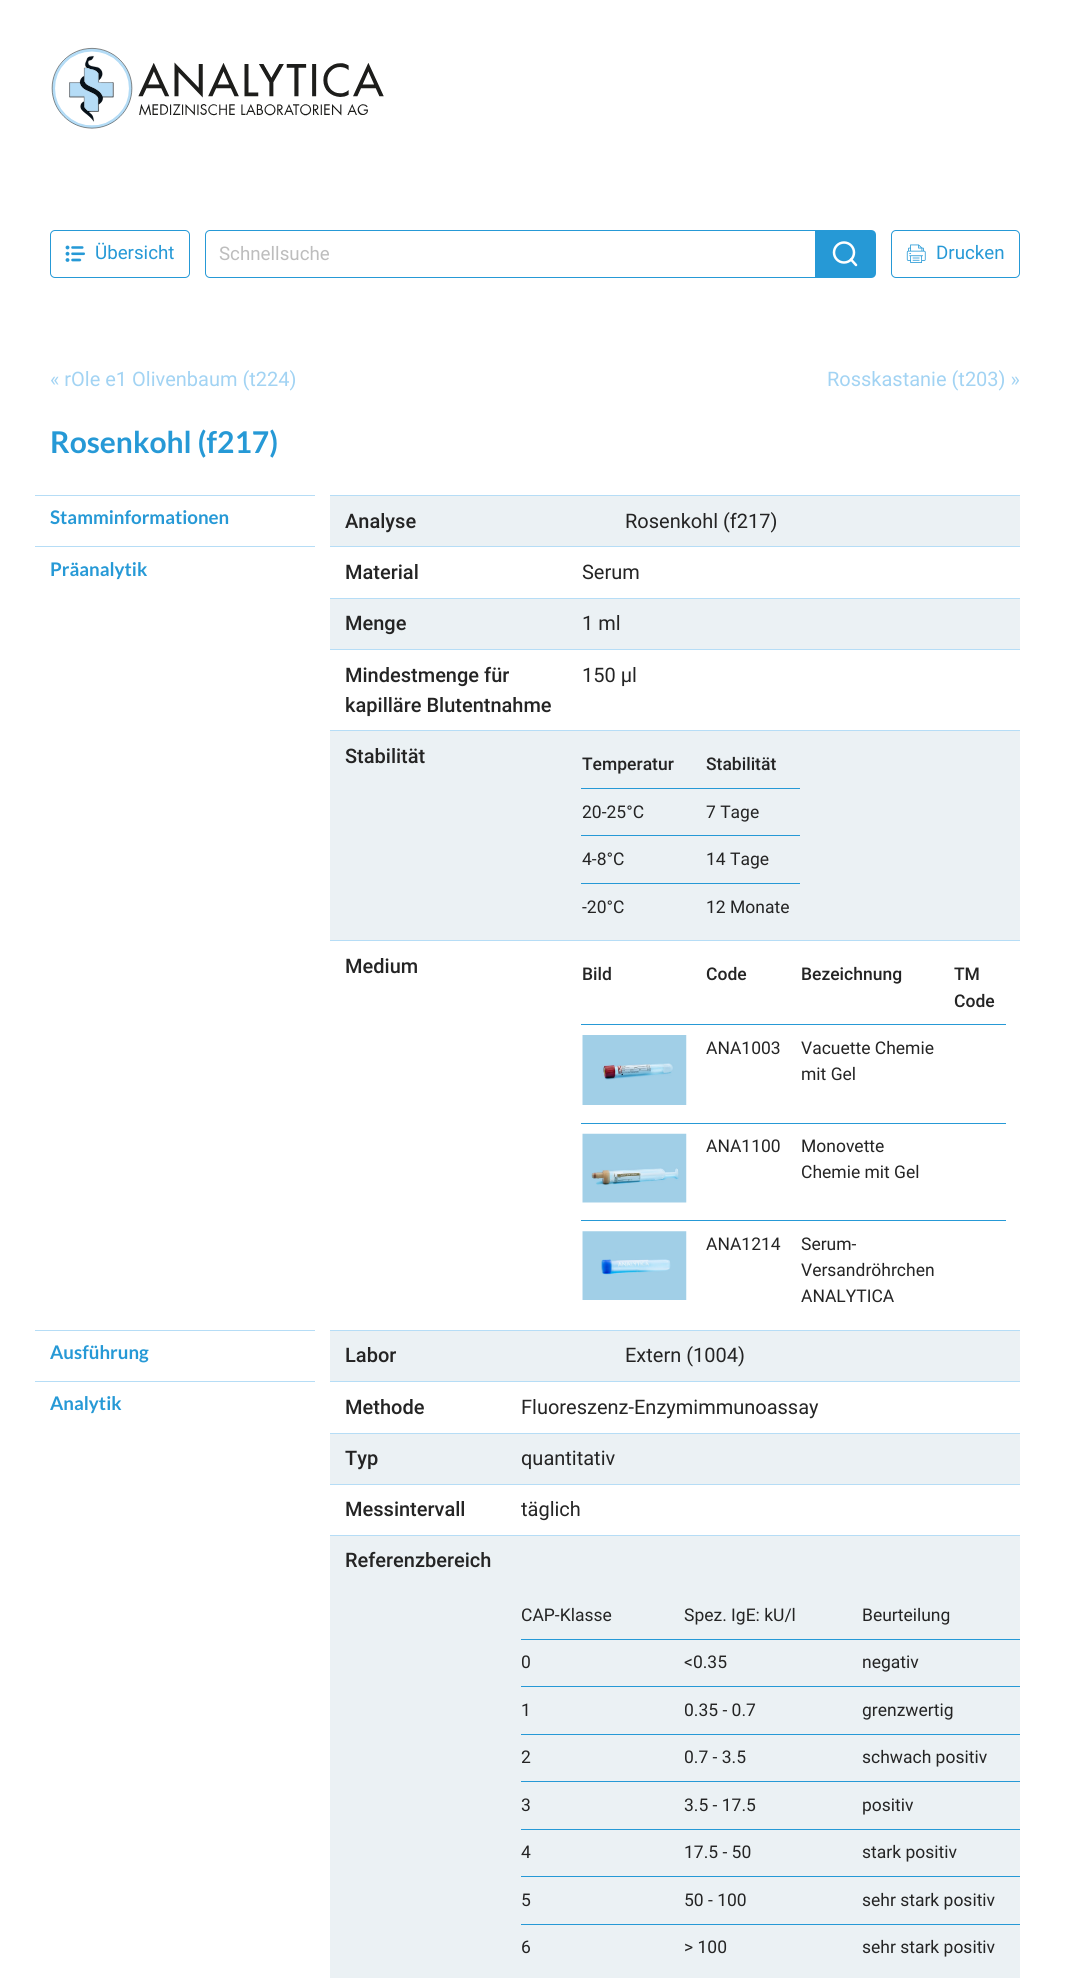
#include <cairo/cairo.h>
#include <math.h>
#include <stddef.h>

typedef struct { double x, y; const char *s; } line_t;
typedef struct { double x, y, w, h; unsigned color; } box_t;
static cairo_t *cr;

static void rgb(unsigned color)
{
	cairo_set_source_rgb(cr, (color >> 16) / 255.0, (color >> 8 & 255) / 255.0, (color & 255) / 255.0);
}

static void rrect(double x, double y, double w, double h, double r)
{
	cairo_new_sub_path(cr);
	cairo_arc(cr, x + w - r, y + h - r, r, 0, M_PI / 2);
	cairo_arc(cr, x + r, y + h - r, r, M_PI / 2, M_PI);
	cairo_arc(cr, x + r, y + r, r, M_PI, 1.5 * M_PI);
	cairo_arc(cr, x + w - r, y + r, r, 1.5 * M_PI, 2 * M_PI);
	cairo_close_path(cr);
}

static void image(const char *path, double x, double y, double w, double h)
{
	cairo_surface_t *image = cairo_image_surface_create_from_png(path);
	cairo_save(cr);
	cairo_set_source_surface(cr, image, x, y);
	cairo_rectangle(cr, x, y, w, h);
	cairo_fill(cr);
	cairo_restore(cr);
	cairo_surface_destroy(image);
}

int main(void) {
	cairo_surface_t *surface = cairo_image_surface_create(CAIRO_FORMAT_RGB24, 1070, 1978);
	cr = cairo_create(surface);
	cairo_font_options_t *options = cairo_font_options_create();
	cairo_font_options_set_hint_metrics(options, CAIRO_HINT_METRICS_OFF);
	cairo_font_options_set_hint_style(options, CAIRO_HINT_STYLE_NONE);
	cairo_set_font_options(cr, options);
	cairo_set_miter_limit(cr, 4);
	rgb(0xffffff);
	cairo_paint(cr);
	image("img/1.png", 51, 47, 333, 82);
	rrect(50.5, 230.5, 139, 47, 4.5);
	rgb(0x2699d6);
	cairo_set_line_width(cr, 1);
	cairo_stroke(cr);
	image("img/2.png", 65, 245, 20, 17);
	cairo_new_path(cr);
	cairo_move_to(cr, 210, 230.5);
	cairo_line_to(cr, 815.5, 230.5);
	cairo_line_to(cr, 815.5, 277.5);
	cairo_line_to(cr, 210, 277.5);
	cairo_curve_to(cr, 207.5, 277.5, 205.5, 275.5, 205.5, 273);
	cairo_line_to(cr, 205.5, 235);
	cairo_curve_to(cr, 205.5, 232.5, 207.5, 230.5, 210, 230.5);
	cairo_close_path(cr);
	cairo_stroke(cr);
	cairo_new_path(cr);
	cairo_move_to(cr, 815, 230);
	cairo_line_to(cr, 871, 230);
	cairo_curve_to(cr, 874, 230, 876, 232, 876, 235);
	cairo_line_to(cr, 876, 273);
	cairo_curve_to(cr, 876, 276, 874, 278, 871, 278);
	cairo_line_to(cr, 815, 278);
	cairo_close_path(cr);
	cairo_fill(cr);
	cairo_arc(cr, 844, 252.5, 10, 0, 2 * M_PI);
	rgb(0xffffff);
	cairo_set_line_width(cr, 2.5);
	cairo_stroke(cr);
	cairo_new_path(cr);
	cairo_move_to(cr, 856, 265);
	cairo_line_to(cr, 851, 259.5);
	cairo_set_line_cap(cr, CAIRO_LINE_CAP_ROUND);
	cairo_set_line_join(cr, CAIRO_LINE_JOIN_ROUND);
	cairo_stroke(cr);
	rrect(891.5, 230.5, 128, 47, 4.5);
	rgb(0x2699d6);
	cairo_set_line_width(cr, 1);
	cairo_set_line_cap(cr, CAIRO_LINE_CAP_BUTT);
	cairo_set_line_join(cr, CAIRO_LINE_JOIN_MITER);
	cairo_stroke(cr);
	image("img/3.png", 906, 244, 20, 19);
	{
		static const box_t items[] = {
			{35, 495, 280, 1, 0xb6ddf6},
			{330, 495, 690, 1, 0xb6ddf6},
			{330, 496, 690, 50, 0xebf1f4},
			{35, 546, 280, 1, 0xb6ddf6},
			{330, 546, 690, 1, 0xb6ddf6},
			{330, 598, 690, 1, 0xb6ddf6},
			{330, 599, 690, 50, 0xebf1f4},
			{330, 649, 690, 1, 0xb6ddf6},
			{330, 730, 690, 1, 0xb6ddf6},
			{330, 731, 690, 209, 0xebf1f4},
			{330, 940, 690, 1, 0xb6ddf6},
			{581, 788, 219, 1, 0x2699d6},
			{581, 835, 219, 1, 0x2699d6},
			{581, 883, 219, 1, 0x2699d6},
			{581, 1024, 425, 1, 0x2699d6},
		};
		for (size_t i = 0; i < sizeof items / sizeof *items; i++) {
			rgb(items[i].color);
			cairo_rectangle(cr, items[i].x, items[i].y, items[i].w, items[i].h);
			cairo_fill(cr);
		}
	}
	image("img/4.png", 582, 1035, 105, 70);
	cairo_rectangle(cr, 581, 1123, 425, 1);
	cairo_fill(cr);
	image("img/5.png", 582, 1133, 105, 70);
	cairo_rectangle(cr, 581, 1220, 425, 1);
	cairo_fill(cr);
	image("img/6.png", 582, 1231, 105, 69);
	{
		static const box_t items[] = {
			{35, 1330, 280, 1, 0xb6ddf6},
			{330, 1330, 690, 1, 0xb6ddf6},
			{330, 1331, 690, 50, 0xebf1f4},
			{35, 1381, 280, 1, 0xb6ddf6},
			{330, 1381, 690, 1, 0xb6ddf6},
			{330, 1433, 690, 1, 0xb6ddf6},
			{330, 1434, 690, 50, 0xebf1f4},
			{330, 1484, 690, 1, 0xb6ddf6},
			{330, 1535, 690, 1, 0xb6ddf6},
			{330, 1536, 690, 442, 0xebf1f4},
			{521, 1639, 499, 1, 0x2699d6},
			{521, 1686, 499, 1, 0x2699d6},
			{521, 1734, 499, 1, 0x2699d6},
			{521, 1781, 499, 1, 0x2699d6},
			{521, 1829, 499, 1, 0x2699d6},
			{521, 1876, 499, 1, 0x2699d6},
			{521, 1924, 499, 1, 0x2699d6},
		};
		for (size_t i = 0; i < sizeof items / sizeof *items; i++) {
			rgb(items[i].color);
			cairo_rectangle(cr, items[i].x, items[i].y, items[i].w, items[i].h);
			cairo_fill(cr);
		}
	}
	cairo_select_font_face(cr, "Roboto", CAIRO_FONT_SLANT_NORMAL, CAIRO_FONT_WEIGHT_NORMAL);
	cairo_set_font_size(cr, 18.75);
	cairo_move_to(cr, 95, 259);
	cairo_show_text(cr, "Übersicht");
	rgb(0xbdbdbd);
	cairo_move_to(cr, 219, 260);
	cairo_show_text(cr, "Schnellsuche");
	rgb(0x2699d6);
	cairo_move_to(cr, 936, 259);
	cairo_show_text(cr, "Drucken");
	cairo_set_font_size(cr, 20);
	rgb(0xa2d3f3);
	cairo_move_to(cr, 50, 386);
	cairo_show_text(cr, "« rOle e1 Olivenbaum (t224)");
	cairo_move_to(cr, 827, 386);
	cairo_show_text(cr, "Rosskastanie (t203) »");
	cairo_select_font_face(cr, "Lato", CAIRO_FONT_SLANT_NORMAL, CAIRO_FONT_WEIGHT_BOLD);
	cairo_set_font_size(cr, 30);
	rgb(0x2699d6);
	cairo_move_to(cr, 50, 453);
	cairo_show_text(cr, "Rosenkohl (f217)");
	cairo_set_font_size(cr, 18.75);
	cairo_move_to(cr, 50, 524);
	cairo_show_text(cr, "Stamminformationen");
	cairo_select_font_face(cr, "Roboto Medium", CAIRO_FONT_SLANT_NORMAL, CAIRO_FONT_WEIGHT_NORMAL);
	cairo_set_font_size(cr, 20);
	rgb(0x242424);
	cairo_move_to(cr, 345, 528);
	cairo_show_text(cr, "Analyse");
	cairo_select_font_face(cr, "Roboto", CAIRO_FONT_SLANT_NORMAL, CAIRO_FONT_WEIGHT_NORMAL);
	cairo_move_to(cr, 625, 528);
	cairo_show_text(cr, "Rosenkohl (f217)");
	cairo_select_font_face(cr, "Lato", CAIRO_FONT_SLANT_NORMAL, CAIRO_FONT_WEIGHT_BOLD);
	cairo_set_font_size(cr, 18.75);
	rgb(0x2699d6);
	cairo_move_to(cr, 50, 576);
	cairo_show_text(cr, "Präanalytik");
	cairo_select_font_face(cr, "Roboto Medium", CAIRO_FONT_SLANT_NORMAL, CAIRO_FONT_WEIGHT_NORMAL);
	cairo_set_font_size(cr, 20);
	rgb(0x242424);
	cairo_move_to(cr, 345, 579);
	cairo_show_text(cr, "Material");
	cairo_select_font_face(cr, "Roboto", CAIRO_FONT_SLANT_NORMAL, CAIRO_FONT_WEIGHT_NORMAL);
	cairo_move_to(cr, 582, 579);
	cairo_show_text(cr, "Serum");
	cairo_select_font_face(cr, "Roboto Medium", CAIRO_FONT_SLANT_NORMAL, CAIRO_FONT_WEIGHT_NORMAL);
	cairo_move_to(cr, 345, 630);
	cairo_show_text(cr, "Menge");
	cairo_select_font_face(cr, "Roboto", CAIRO_FONT_SLANT_NORMAL, CAIRO_FONT_WEIGHT_NORMAL);
	cairo_move_to(cr, 582, 630);
	cairo_show_text(cr, "1 ml");
	cairo_select_font_face(cr, "Roboto Medium", CAIRO_FONT_SLANT_NORMAL, CAIRO_FONT_WEIGHT_NORMAL);
	cairo_move_to(cr, 345, 682);
	cairo_show_text(cr, "Mindestmenge für");
	cairo_move_to(cr, 345, 712);
	cairo_show_text(cr, "kapilläre Blutentnahme");
	cairo_select_font_face(cr, "Roboto", CAIRO_FONT_SLANT_NORMAL, CAIRO_FONT_WEIGHT_NORMAL);
	cairo_move_to(cr, 582, 682);
	cairo_show_text(cr, "150 µl");
	cairo_select_font_face(cr, "Roboto Medium", CAIRO_FONT_SLANT_NORMAL, CAIRO_FONT_WEIGHT_NORMAL);
	cairo_move_to(cr, 345, 763);
	cairo_show_text(cr, "Stabilität");
	cairo_set_font_size(cr, 17.5);
	cairo_move_to(cr, 582, 770);
	cairo_show_text(cr, "Temperatur");
	cairo_move_to(cr, 706, 770);
	cairo_show_text(cr, "Stabilität");
	cairo_select_font_face(cr, "Roboto", CAIRO_FONT_SLANT_NORMAL, CAIRO_FONT_WEIGHT_NORMAL);
	{
		static const line_t items[] = {
			{582, 818, "20-25°C"},
			{706, 818, "7 Tage"},
			{582, 865, "4-8°C"},
			{706, 865, "14 Tage"},
			{582, 913, "-20°C"},
			{706, 913, "12 Monate"},
		};
		for (size_t i = 0; i < sizeof items / sizeof *items; i++) {
			cairo_move_to(cr, items[i].x, items[i].y);
			cairo_show_text(cr, items[i].s);
		}
	}
	cairo_select_font_face(cr, "Roboto Medium", CAIRO_FONT_SLANT_NORMAL, CAIRO_FONT_WEIGHT_NORMAL);
	cairo_set_font_size(cr, 20);
	cairo_move_to(cr, 345, 973);
	cairo_show_text(cr, "Medium");
	cairo_set_font_size(cr, 17.5);
	{
		static const line_t items[] = {
			{582, 980, "Bild"},
			{706, 980, "Code"},
			{801, 980, "Bezeichnung"},
			{954, 980, "TM"},
			{954, 1007, "Code"},
		};
		for (size_t i = 0; i < sizeof items / sizeof *items; i++) {
			cairo_move_to(cr, items[i].x, items[i].y);
			cairo_show_text(cr, items[i].s);
		}
	}
	cairo_select_font_face(cr, "Roboto", CAIRO_FONT_SLANT_NORMAL, CAIRO_FONT_WEIGHT_NORMAL);
	{
		static const line_t items[] = {
			{706, 1054, "ANA1003"},
			{801, 1054, "Vacuette Chemie"},
			{801, 1080, "mit Gel"},
			{706, 1152, "ANA1100"},
			{801, 1152, "Monovette"},
			{801, 1178, "Chemie mit Gel"},
			{706, 1250, "ANA1214"},
			{801, 1250, "Serum-"},
			{801, 1276, "Versandröhrchen"},
			{801, 1302, "ANALYTICA"},
		};
		for (size_t i = 0; i < sizeof items / sizeof *items; i++) {
			cairo_move_to(cr, items[i].x, items[i].y);
			cairo_show_text(cr, items[i].s);
		}
	}
	cairo_select_font_face(cr, "Lato", CAIRO_FONT_SLANT_NORMAL, CAIRO_FONT_WEIGHT_BOLD);
	cairo_set_font_size(cr, 18.75);
	rgb(0x2699d6);
	cairo_move_to(cr, 50, 1359);
	cairo_show_text(cr, "Ausführung");
	cairo_select_font_face(cr, "Roboto Medium", CAIRO_FONT_SLANT_NORMAL, CAIRO_FONT_WEIGHT_NORMAL);
	cairo_set_font_size(cr, 20);
	rgb(0x242424);
	cairo_move_to(cr, 345, 1362);
	cairo_show_text(cr, "Labor");
	cairo_select_font_face(cr, "Roboto", CAIRO_FONT_SLANT_NORMAL, CAIRO_FONT_WEIGHT_NORMAL);
	cairo_move_to(cr, 625, 1362);
	cairo_show_text(cr, "Extern (1004)");
	cairo_select_font_face(cr, "Lato", CAIRO_FONT_SLANT_NORMAL, CAIRO_FONT_WEIGHT_BOLD);
	cairo_set_font_size(cr, 18.75);
	rgb(0x2699d6);
	cairo_move_to(cr, 50, 1410);
	cairo_show_text(cr, "Analytik");
	cairo_select_font_face(cr, "Roboto Medium", CAIRO_FONT_SLANT_NORMAL, CAIRO_FONT_WEIGHT_NORMAL);
	cairo_set_font_size(cr, 20);
	rgb(0x242424);
	cairo_move_to(cr, 345, 1414);
	cairo_show_text(cr, "Methode");
	cairo_select_font_face(cr, "Roboto", CAIRO_FONT_SLANT_NORMAL, CAIRO_FONT_WEIGHT_NORMAL);
	cairo_move_to(cr, 521, 1414);
	cairo_show_text(cr, "Fluoreszenz-Enzymimmunoassay");
	cairo_select_font_face(cr, "Roboto Medium", CAIRO_FONT_SLANT_NORMAL, CAIRO_FONT_WEIGHT_NORMAL);
	cairo_move_to(cr, 345, 1465);
	cairo_show_text(cr, "Typ");
	cairo_select_font_face(cr, "Roboto", CAIRO_FONT_SLANT_NORMAL, CAIRO_FONT_WEIGHT_NORMAL);
	cairo_move_to(cr, 521, 1465);
	cairo_show_text(cr, "quantitativ");
	cairo_select_font_face(cr, "Roboto Medium", CAIRO_FONT_SLANT_NORMAL, CAIRO_FONT_WEIGHT_NORMAL);
	cairo_move_to(cr, 345, 1516);
	cairo_show_text(cr, "Messintervall");
	cairo_select_font_face(cr, "Roboto", CAIRO_FONT_SLANT_NORMAL, CAIRO_FONT_WEIGHT_NORMAL);
	cairo_move_to(cr, 521, 1516);
	cairo_show_text(cr, "täglich");
	cairo_select_font_face(cr, "Roboto Medium", CAIRO_FONT_SLANT_NORMAL, CAIRO_FONT_WEIGHT_NORMAL);
	cairo_move_to(cr, 345, 1567);
	cairo_show_text(cr, "Referenzbereich");
	cairo_select_font_face(cr, "Roboto", CAIRO_FONT_SLANT_NORMAL, CAIRO_FONT_WEIGHT_NORMAL);
	cairo_set_font_size(cr, 17.5);
	{
		static const line_t items[] = {
			{521, 1621, "CAP-Klasse"},
			{684, 1621, "Spez. IgE: kU/l"},
			{862, 1621, "Beurteilung"},
			{521, 1668, "0"},
			{684, 1668, "<0.35"},
			{862, 1668, "negativ"},
			{521, 1716, "1"},
			{684, 1716, "0.35 - 0.7"},
			{862, 1716, "grenzwertig"},
			{521, 1763, "2"},
			{684, 1763, "0.7 - 3.5"},
			{862, 1763, "schwach positiv"},
			{521, 1811, "3"},
			{684, 1811, "3.5 - 17.5"},
			{862, 1811, "positiv"},
			{521, 1858, "4"},
			{684, 1858, "17.5 - 50"},
			{862, 1858, "stark positiv"},
			{521, 1906, "5"},
			{684, 1906, "50 - 100"},
			{862, 1906, "sehr stark positiv"},
			{521, 1953, "6"},
			{684, 1953, "> 100"},
			{862, 1953, "sehr stark positiv"},
		};
		for (size_t i = 0; i < sizeof items / sizeof *items; i++) {
			cairo_move_to(cr, items[i].x, items[i].y);
			cairo_show_text(cr, items[i].s);
		}
	}
	cairo_surface_write_to_png(surface, "page.png");
	cairo_font_options_destroy(options);
	cairo_destroy(cr);
	cairo_surface_destroy(surface);
	return 0;
}
